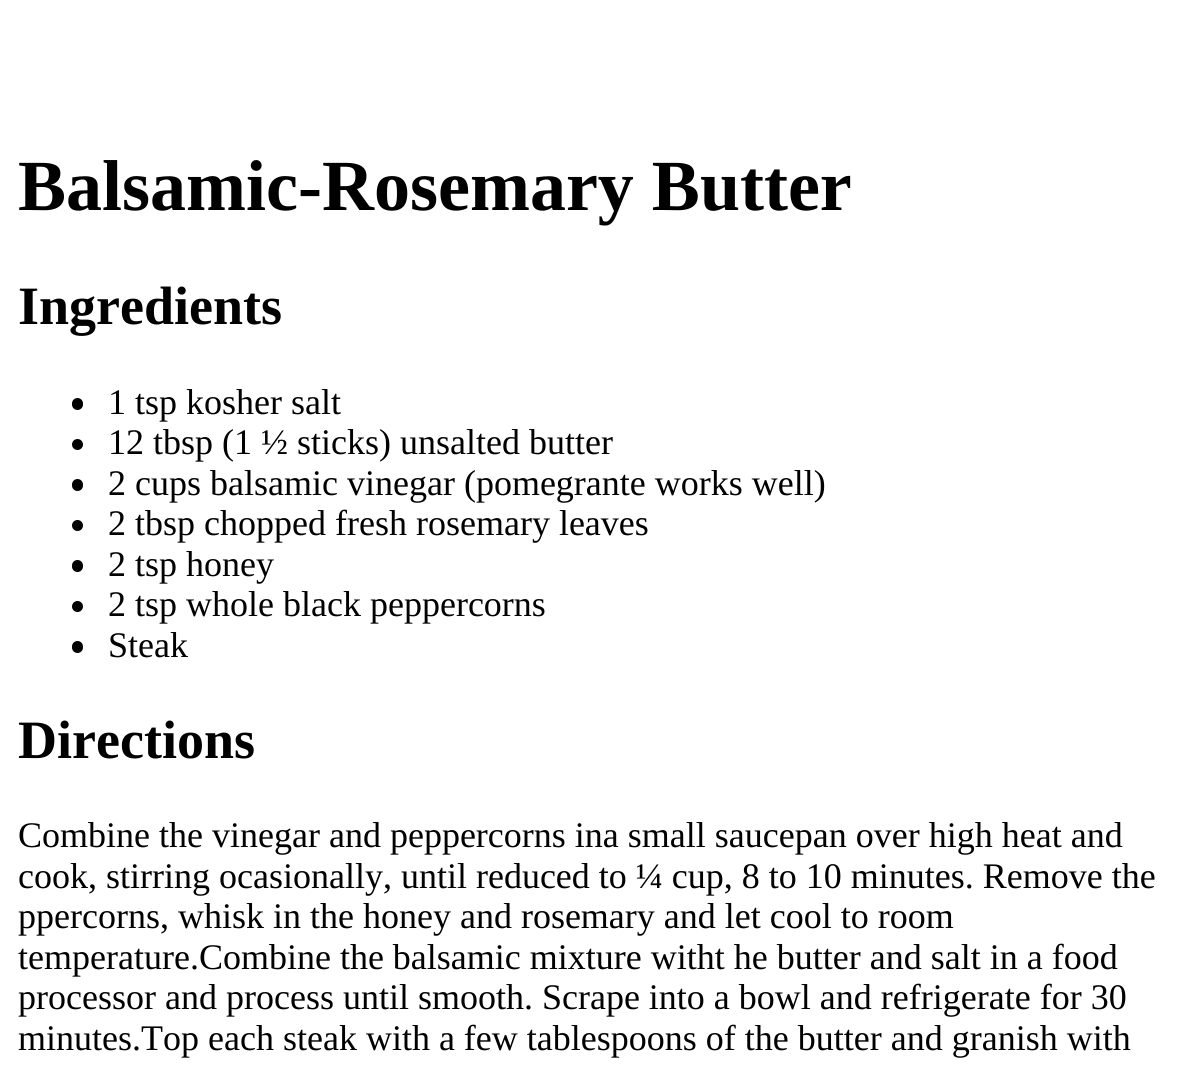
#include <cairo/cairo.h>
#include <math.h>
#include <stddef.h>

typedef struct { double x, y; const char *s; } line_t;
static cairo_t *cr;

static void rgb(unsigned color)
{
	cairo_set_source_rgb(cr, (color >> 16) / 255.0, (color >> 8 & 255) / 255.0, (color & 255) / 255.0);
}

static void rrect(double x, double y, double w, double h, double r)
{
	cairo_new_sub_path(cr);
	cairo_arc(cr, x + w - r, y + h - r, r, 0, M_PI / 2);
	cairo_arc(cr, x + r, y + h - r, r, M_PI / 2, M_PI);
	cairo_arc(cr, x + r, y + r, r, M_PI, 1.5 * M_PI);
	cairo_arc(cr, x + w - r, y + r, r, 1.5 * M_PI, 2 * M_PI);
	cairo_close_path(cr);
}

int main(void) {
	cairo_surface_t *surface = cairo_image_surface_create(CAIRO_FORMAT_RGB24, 1193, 1074);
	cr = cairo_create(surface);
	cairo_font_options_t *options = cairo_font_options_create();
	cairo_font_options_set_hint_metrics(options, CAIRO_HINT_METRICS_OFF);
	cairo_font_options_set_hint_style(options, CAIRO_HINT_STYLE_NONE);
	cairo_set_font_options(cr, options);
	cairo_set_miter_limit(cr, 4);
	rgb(0xffffff);
	cairo_paint(cr);
	rgb(0x000000);
	rrect(72, 398, 11, 12, 5.5);
	cairo_fill(cr);
	cairo_arc(cr, 77.5, 444.5, 5.5, 0, 2 * M_PI);
	cairo_fill(cr);
	rrect(72, 479, 11, 12, 5.5);
	cairo_fill(cr);
	cairo_arc(cr, 77.5, 525.5, 5.5, 0, 2 * M_PI);
	cairo_fill(cr);
	rrect(72, 560, 11, 12, 5.5);
	cairo_fill(cr);
	cairo_arc(cr, 77.5, 606.5, 5.5, 0, 2 * M_PI);
	cairo_fill(cr);
	rrect(72, 641, 11, 12, 5.5);
	cairo_fill(cr);
	cairo_select_font_face(cr, "Liberation Serif", CAIRO_FONT_SLANT_NORMAL, CAIRO_FONT_WEIGHT_BOLD);
	cairo_set_font_size(cr, 72);
	cairo_move_to(cr, 18, 210);
	cairo_show_text(cr, "Balsamic-Rosemary Butter");
	cairo_set_font_size(cr, 54);
	cairo_move_to(cr, 18, 324);
	cairo_show_text(cr, "Ingredients");
	cairo_select_font_face(cr, "Liberation Serif", CAIRO_FONT_SLANT_NORMAL, CAIRO_FONT_WEIGHT_NORMAL);
	cairo_set_font_size(cr, 36);
	{
		static const line_t items[] = {
			{108, 414, "1 tsp kosher salt"},
			{108, 454, "12 tbsp (1 ½ sticks) unsalted butter"},
			{108, 495, "2 cups balsamic vinegar (pomegrante works well)"},
			{108, 535, "2 tbsp chopped fresh rosemary leaves"},
			{108, 576, "2 tsp honey"},
			{108, 616, "2 tsp whole black peppercorns"},
			{108, 657, "Steak"},
		};
		for (size_t i = 0; i < sizeof items / sizeof *items; i++) {
			cairo_move_to(cr, items[i].x, items[i].y);
			cairo_show_text(cr, items[i].s);
		}
	}
	cairo_select_font_face(cr, "Liberation Serif", CAIRO_FONT_SLANT_NORMAL, CAIRO_FONT_WEIGHT_BOLD);
	cairo_set_font_size(cr, 54);
	cairo_move_to(cr, 18, 758);
	cairo_show_text(cr, "Directions");
	cairo_select_font_face(cr, "Liberation Serif", CAIRO_FONT_SLANT_NORMAL, CAIRO_FONT_WEIGHT_NORMAL);
	cairo_set_font_size(cr, 36);
	{
		static const line_t items[] = {
			{18, 847, "Combine the vinegar and peppercorns ina small saucepan over high heat and"},
			{18, 888, "cook, stirring ocasionally, until reduced to ¼ cup, 8 to 10 minutes. Remove the"},
			{18, 928, "ppercorns, whisk in the honey and rosemary and let cool to room"},
			{18, 969, "temperature.Combine the balsamic mixture witht he butter and salt in a food"},
			{18, 1009, "processor and process until smooth. Scrape into a bowl and refrigerate for 30"},
			{18, 1050, "minutes.Top each steak with a few tablespoons of the butter and granish with"},
		};
		for (size_t i = 0; i < sizeof items / sizeof *items; i++) {
			cairo_move_to(cr, items[i].x, items[i].y);
			cairo_show_text(cr, items[i].s);
		}
	}
	cairo_surface_write_to_png(surface, "page.png");
	cairo_font_options_destroy(options);
	cairo_destroy(cr);
	cairo_surface_destroy(surface);
	return 0;
}
